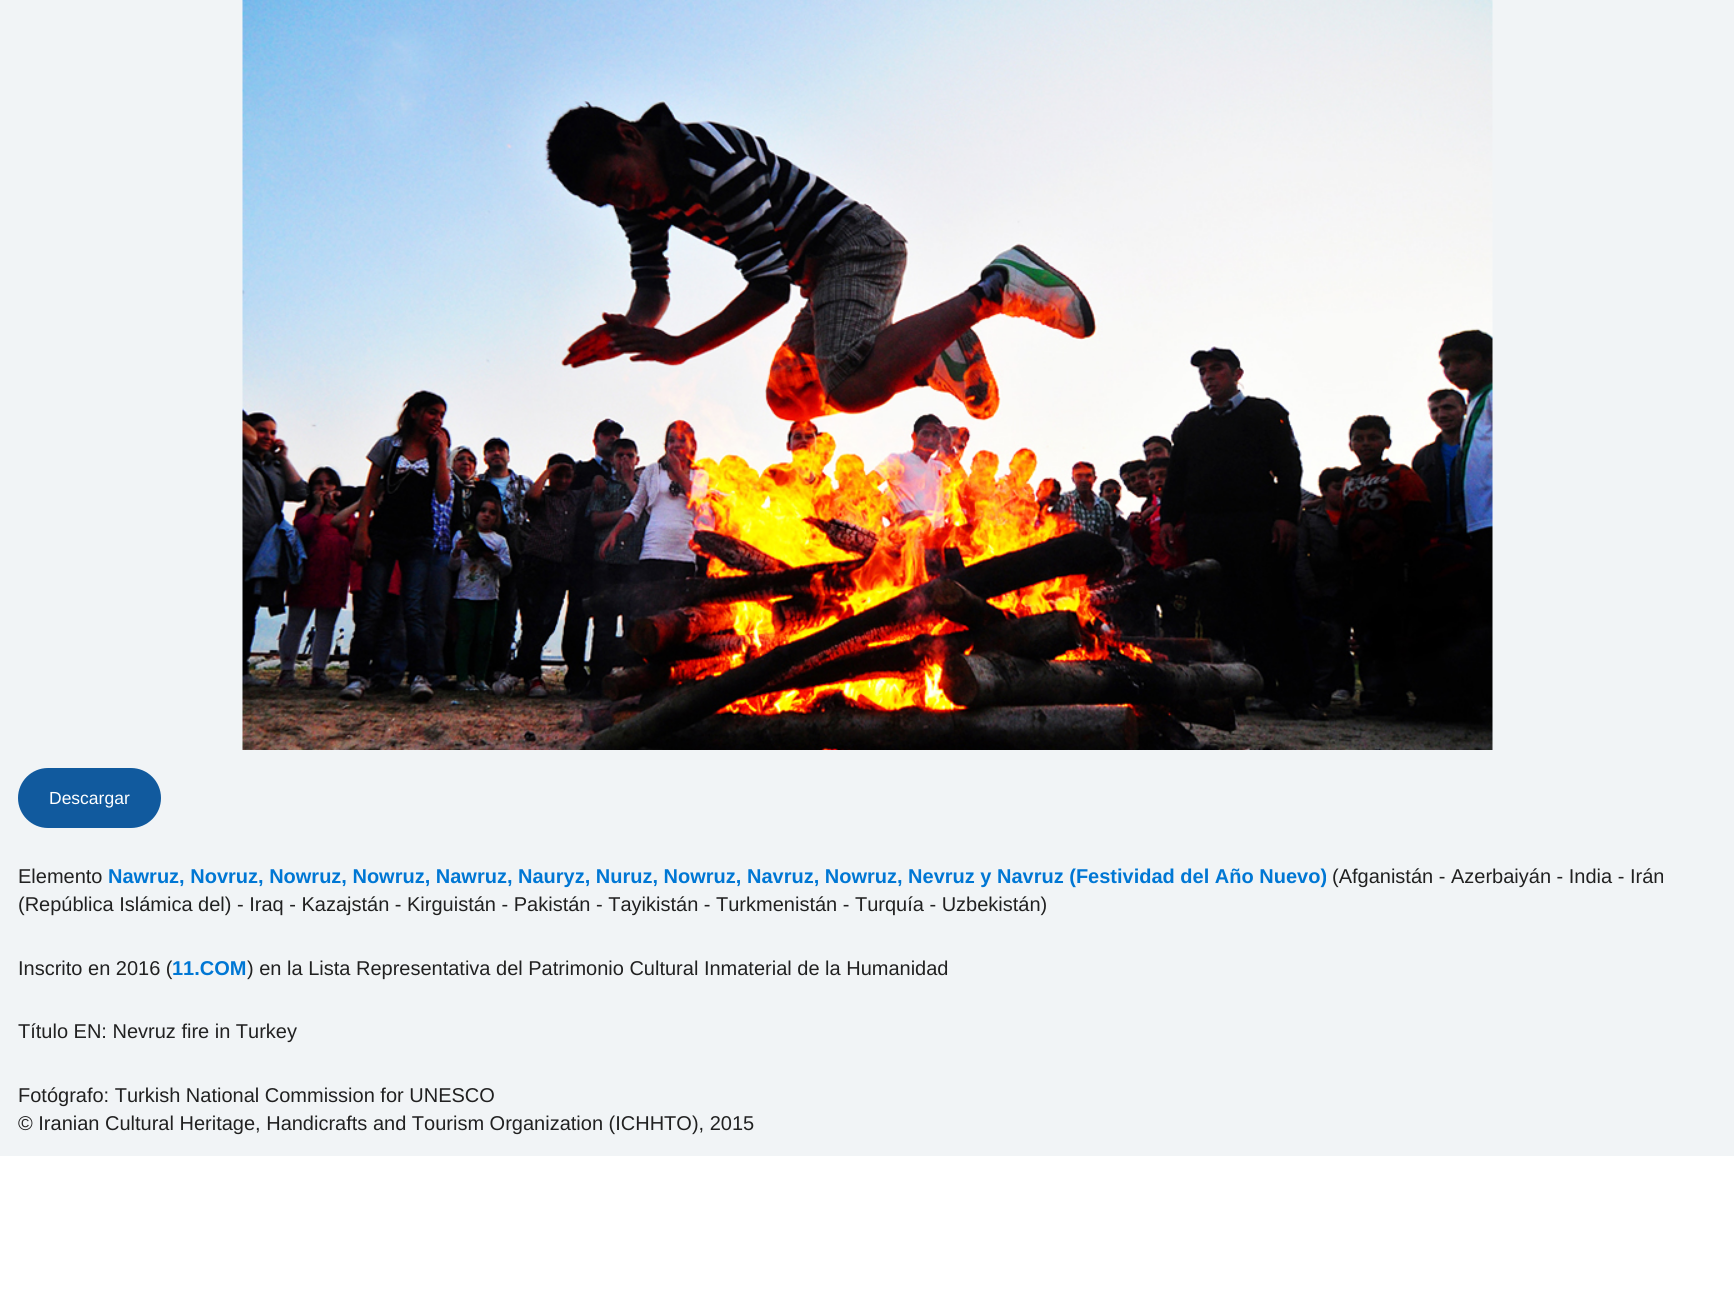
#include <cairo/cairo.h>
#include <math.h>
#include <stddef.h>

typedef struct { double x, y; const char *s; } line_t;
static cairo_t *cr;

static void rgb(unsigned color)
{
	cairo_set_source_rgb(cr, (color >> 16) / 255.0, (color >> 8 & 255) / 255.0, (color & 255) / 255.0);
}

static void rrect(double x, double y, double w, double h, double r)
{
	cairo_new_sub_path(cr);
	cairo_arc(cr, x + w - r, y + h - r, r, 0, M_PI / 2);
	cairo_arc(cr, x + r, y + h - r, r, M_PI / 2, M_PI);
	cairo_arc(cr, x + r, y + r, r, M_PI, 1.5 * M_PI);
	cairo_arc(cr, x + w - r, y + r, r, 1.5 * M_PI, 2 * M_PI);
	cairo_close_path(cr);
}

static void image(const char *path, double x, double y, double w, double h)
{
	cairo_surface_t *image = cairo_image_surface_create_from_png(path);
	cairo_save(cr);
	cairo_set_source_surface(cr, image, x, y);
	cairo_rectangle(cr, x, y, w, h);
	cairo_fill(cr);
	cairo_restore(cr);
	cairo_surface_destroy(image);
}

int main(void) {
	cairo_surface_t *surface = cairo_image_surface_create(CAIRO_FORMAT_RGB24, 1734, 1312);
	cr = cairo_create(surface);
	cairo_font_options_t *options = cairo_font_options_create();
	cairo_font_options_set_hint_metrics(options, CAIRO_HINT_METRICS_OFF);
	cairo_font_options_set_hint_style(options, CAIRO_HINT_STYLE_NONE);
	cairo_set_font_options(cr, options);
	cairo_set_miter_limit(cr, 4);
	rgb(0xffffff);
	cairo_paint(cr);
	rgb(0xf1f4f6);
	cairo_rectangle(cr, 0, 0, 1734, 1156);
	cairo_fill(cr);
	image("img/1.png", 242, 0, 1251, 750);
	rgb(0x115a9e);
	rrect(18, 768, 143, 60, 30);
	cairo_fill(cr);
	cairo_select_font_face(cr, "Liberation Sans", CAIRO_FONT_SLANT_NORMAL, CAIRO_FONT_WEIGHT_NORMAL);
	cairo_set_font_size(cr, 17.5);
	rgb(0xffffff);
	cairo_move_to(cr, 49, 804);
	cairo_show_text(cr, "Descargar");
	cairo_set_font_size(cr, 20);
	rgb(0x212121);
	cairo_move_to(cr, 18, 883);
	cairo_show_text(cr, "Elemento");
	cairo_select_font_face(cr, "Liberation Sans", CAIRO_FONT_SLANT_NORMAL, CAIRO_FONT_WEIGHT_BOLD);
	rgb(0x0077d4);
	cairo_move_to(cr, 108, 883);
	cairo_show_text(cr, "Nawruz, Novruz, Nowruz, Nowruz, Nawruz, Nauryz, Nuruz, Nowruz, Navruz, Nowruz, Nevruz y Navruz (Festividad del Año Nuevo)");
	cairo_select_font_face(cr, "Liberation Sans", CAIRO_FONT_SLANT_NORMAL, CAIRO_FONT_WEIGHT_NORMAL);
	rgb(0x212121);
	{
		static const line_t items[] = {
			{1332, 883, "(Afganistán - Azerbaiyán - India - Irán"},
			{18, 911, "(República Islámica del) - Iraq - Kazajstán - Kirguistán - Pakistán - Tayikistán - Turkmenistán - Turquía - Uzbekistán)"},
			{18, 975, "Inscrito en 2016 ("},
		};
		for (size_t i = 0; i < sizeof items / sizeof *items; i++) {
			cairo_move_to(cr, items[i].x, items[i].y);
			cairo_show_text(cr, items[i].s);
		}
	}
	cairo_select_font_face(cr, "Liberation Sans", CAIRO_FONT_SLANT_NORMAL, CAIRO_FONT_WEIGHT_BOLD);
	rgb(0x0077d4);
	cairo_move_to(cr, 172, 975);
	cairo_show_text(cr, "11.COM");
	cairo_select_font_face(cr, "Liberation Sans", CAIRO_FONT_SLANT_NORMAL, CAIRO_FONT_WEIGHT_NORMAL);
	rgb(0x212121);
	{
		static const line_t items[] = {
			{247, 975, ") en la Lista Representativa del Patrimonio Cultural Inmaterial de la Humanidad"},
			{18, 1038, "Título EN: Nevruz fire in Turkey"},
			{18, 1102, "Fotógrafo: Turkish National Commission for UNESCO"},
			{18, 1130, "© Iranian Cultural Heritage, Handicrafts and Tourism Organization (ICHHTO), 2015"},
		};
		for (size_t i = 0; i < sizeof items / sizeof *items; i++) {
			cairo_move_to(cr, items[i].x, items[i].y);
			cairo_show_text(cr, items[i].s);
		}
	}
	cairo_surface_write_to_png(surface, "page.png");
	cairo_font_options_destroy(options);
	cairo_destroy(cr);
	cairo_surface_destroy(surface);
	return 0;
}
